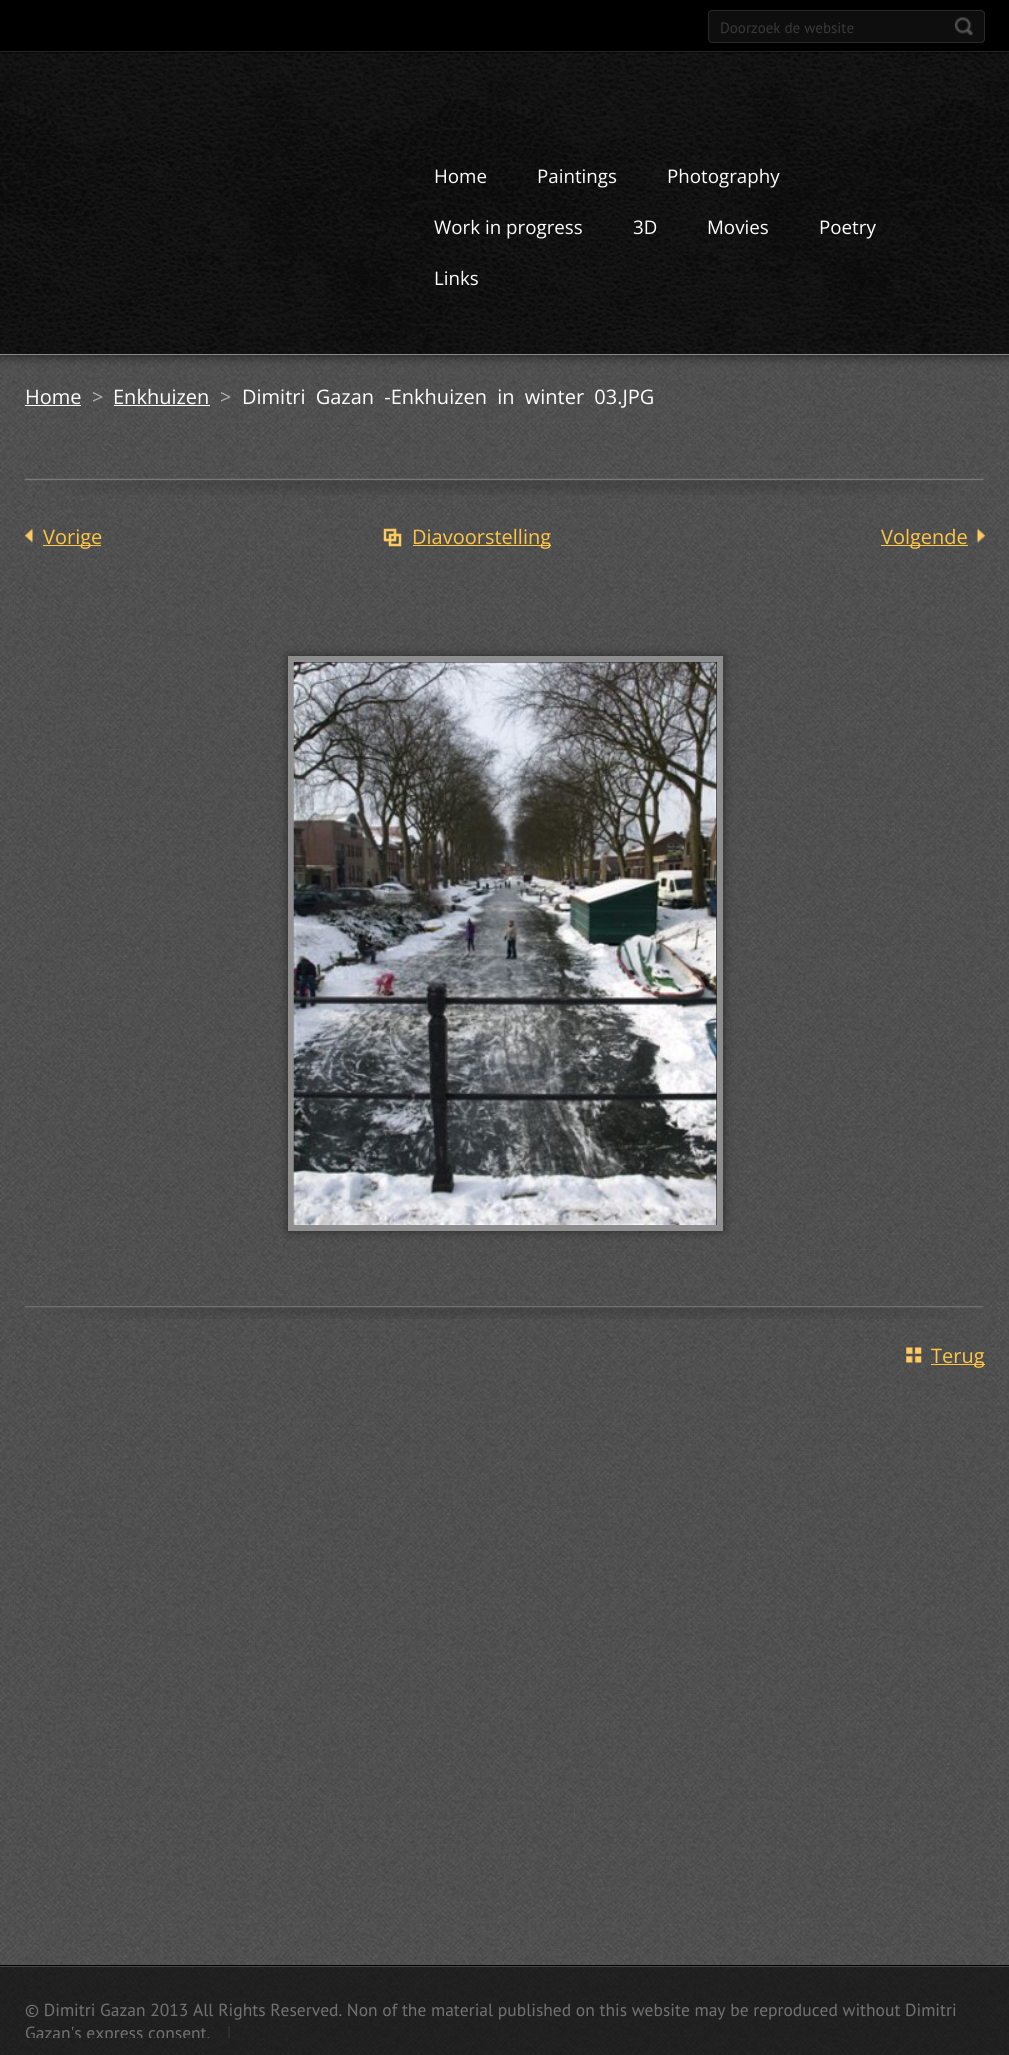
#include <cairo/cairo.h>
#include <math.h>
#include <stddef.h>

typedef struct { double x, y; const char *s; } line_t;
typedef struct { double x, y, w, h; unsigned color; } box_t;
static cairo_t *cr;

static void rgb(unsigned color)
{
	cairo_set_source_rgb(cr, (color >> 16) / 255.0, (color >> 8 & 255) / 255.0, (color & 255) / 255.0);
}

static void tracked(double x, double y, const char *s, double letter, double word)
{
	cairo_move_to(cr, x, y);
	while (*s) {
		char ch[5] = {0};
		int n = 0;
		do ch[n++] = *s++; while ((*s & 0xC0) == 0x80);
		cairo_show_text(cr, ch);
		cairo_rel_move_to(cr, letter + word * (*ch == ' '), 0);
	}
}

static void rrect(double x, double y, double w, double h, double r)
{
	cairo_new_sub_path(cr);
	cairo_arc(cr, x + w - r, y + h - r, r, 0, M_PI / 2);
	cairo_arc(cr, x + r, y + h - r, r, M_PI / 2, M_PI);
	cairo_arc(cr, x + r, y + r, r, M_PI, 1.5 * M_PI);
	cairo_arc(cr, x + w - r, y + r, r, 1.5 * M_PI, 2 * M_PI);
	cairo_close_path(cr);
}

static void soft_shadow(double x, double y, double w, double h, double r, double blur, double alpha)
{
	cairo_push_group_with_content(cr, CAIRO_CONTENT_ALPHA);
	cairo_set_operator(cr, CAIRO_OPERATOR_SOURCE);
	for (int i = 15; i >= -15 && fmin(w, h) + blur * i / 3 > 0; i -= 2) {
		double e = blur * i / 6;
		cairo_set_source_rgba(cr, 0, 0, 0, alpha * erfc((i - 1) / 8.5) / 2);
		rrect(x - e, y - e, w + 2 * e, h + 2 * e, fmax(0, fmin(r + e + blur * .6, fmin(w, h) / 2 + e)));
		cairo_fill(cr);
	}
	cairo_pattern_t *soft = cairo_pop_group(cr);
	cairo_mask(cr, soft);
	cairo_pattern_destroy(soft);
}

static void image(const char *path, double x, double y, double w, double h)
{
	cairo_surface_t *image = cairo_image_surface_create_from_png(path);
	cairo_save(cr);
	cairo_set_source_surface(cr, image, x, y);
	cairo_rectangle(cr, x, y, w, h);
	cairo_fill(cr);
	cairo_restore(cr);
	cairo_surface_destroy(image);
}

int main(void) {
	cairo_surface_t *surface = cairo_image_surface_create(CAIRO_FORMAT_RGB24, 1009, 2055);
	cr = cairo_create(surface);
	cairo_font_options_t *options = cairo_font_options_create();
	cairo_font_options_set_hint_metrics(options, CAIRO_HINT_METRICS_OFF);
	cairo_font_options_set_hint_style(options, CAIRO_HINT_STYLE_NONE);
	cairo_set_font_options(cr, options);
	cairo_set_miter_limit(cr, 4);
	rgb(0xffffff);
	cairo_paint(cr);
	image("img/1.png", 0, 355, 1009, 1700);
	rgb(0x000000);
	cairo_rectangle(cr, 0, 0, 1009, 53);
	cairo_fill(cr);
	rgb(0x303030);
	cairo_rectangle(cr, 0, 51, 1009, 1);
	cairo_fill(cr);
	rgb(0x000000);
	soft_shadow(0, 53, 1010, 302, 0, 6, 0.7);
	rgb(0x0e0e0e);
	rrect(708.5, 10.5, 276, 32, 3.5);
	cairo_fill_preserve(cr);
	rgb(0x292929);
	cairo_set_line_width(cr, 1);
	cairo_stroke(cr);
	image("img/2.png", 954, 17, 19, 19);
	image("img/3.png", 0, 52, 1009, 302);
	{
		static const box_t items[] = {
			{0, 354, 1009, 1, 0x8a8a8a},
			{25, 405, 56, 1, 0xffffff},
			{114, 405, 96, 1, 0xffffff},
		};
		for (size_t i = 0; i < sizeof items / sizeof *items; i++) {
			rgb(items[i].color);
			cairo_rectangle(cr, items[i].x, items[i].y, items[i].w, items[i].h);
			cairo_fill(cr);
		}
	}
	image("img/4.png", 25, 478, 959, 17);
	image("img/5.png", 25, 528, 8, 15);
	rgb(0xffc644);
	cairo_rectangle(cr, 43, 545, 58, 1);
	cairo_fill(cr);
	image("img/6.png", 383, 528, 19, 19);
	cairo_rectangle(cr, 413, 545, 138, 1);
	cairo_fill(cr);
	image("img/7.png", 977, 528, 8, 15);
	cairo_rectangle(cr, 881, 545, 87, 1);
	cairo_fill(cr);
	image("img/8.png", 25, 1306, 959, 13);
	rgb(0x000000);
	soft_shadow(288, 656, 435, 575, 0, 5, 0.5);
	cairo_rectangle(cr, 291, 659, 429, 569);
	rgb(0x8e8e8e);
	cairo_set_line_width(cr, 6);
	cairo_stroke(cr);
	image("img/9.png", 293, 662, 424, 563);
	image("img/10.png", 906, 1347, 16, 16);
	rgb(0xffc644);
	cairo_rectangle(cr, 931, 1364, 54, 1);
	cairo_fill(cr);
	rgb(0x000000);
	cairo_rectangle(cr, 0, 1965, 1009, 1);
	cairo_fill(cr);
	cairo_set_source_rgba(cr, 0, 0, 0, 0.6);
	cairo_rectangle(cr, 0, 1967, 1009, 88);
	cairo_fill(cr);
	rgb(0x464646);
	cairo_rectangle(cr, 0, 1966, 1009, 1);
	cairo_fill(cr);
	cairo_select_font_face(cr, "PT Sans", CAIRO_FONT_SLANT_NORMAL, CAIRO_FONT_WEIGHT_NORMAL);
	cairo_set_font_size(cr, 15);
	rgb(0x383838);
	cairo_move_to(cr, 720, 33);
	cairo_show_text(cr, "Doorzoek de website");
	cairo_select_font_face(cr, "Open Sans", CAIRO_FONT_SLANT_NORMAL, CAIRO_FONT_WEIGHT_NORMAL);
	cairo_set_font_size(cr, 18.75);
	rgb(0xffffff);
	{
		static const line_t items[] = {
			{434, 183, "Home"},
			{537, 183, "Paintings"},
			{667, 183, "Photography"},
			{434, 234, "Work in progress"},
			{633, 234, "3D"},
			{707, 234, "Movies"},
			{819, 234, "Poetry"},
			{434, 285, "Links"},
		};
		for (size_t i = 0; i < sizeof items / sizeof *items; i++) {
			cairo_move_to(cr, items[i].x, items[i].y);
			cairo_show_text(cr, items[i].s);
		}
	}
	cairo_set_font_size(cr, 20);
	cairo_move_to(cr, 25, 404);
	cairo_show_text(cr, "Home");
	rgb(0xb3b3b3);
	cairo_move_to(cr, 92, 404);
	cairo_show_text(cr, ">");
	rgb(0xffffff);
	cairo_move_to(cr, 113, 404);
	cairo_show_text(cr, "Enkhuizen");
	rgb(0xb3b3b3);
	cairo_move_to(cr, 220, 404);
	cairo_show_text(cr, ">");
	rgb(0xffffff);
	tracked(242, 404, "Dimitri Gazan -Enkhuizen in winter 03.JPG", 0, 5);
	rgb(0xffc644);
	{
		static const line_t items[] = {
			{43, 544, "Vorige"},
			{412, 544, "Diavoorstelling"},
			{881, 544, "Volgende"},
			{931, 1363, "Terug"},
		};
		for (size_t i = 0; i < sizeof items / sizeof *items; i++) {
			cairo_move_to(cr, items[i].x, items[i].y);
			cairo_show_text(cr, items[i].s);
		}
	}
	cairo_select_font_face(cr, "PT Sans", CAIRO_FONT_SLANT_NORMAL, CAIRO_FONT_WEIGHT_NORMAL);
	cairo_set_font_size(cr, 17.5);
	rgb(0x727272);
	cairo_move_to(cr, 25, 2016);
	cairo_show_text(cr, "© Dimitri Gazan 2013 All Rights Reserved. Non of the material published on this website may be reproduced without Dimitri");
	cairo_save(cr);
	cairo_rectangle(cr, 25, 1999, 960, 39);
	cairo_clip(cr);
	cairo_move_to(cr, 25, 2039);
	cairo_show_text(cr, "Gazan's express consent.");
	rgb(0x383838);
	cairo_move_to(cr, 227, 2039);
	cairo_show_text(cr, "|");
	cairo_restore(cr);
	cairo_surface_write_to_png(surface, "page.png");
	cairo_font_options_destroy(options);
	cairo_destroy(cr);
	cairo_surface_destroy(surface);
	return 0;
}
